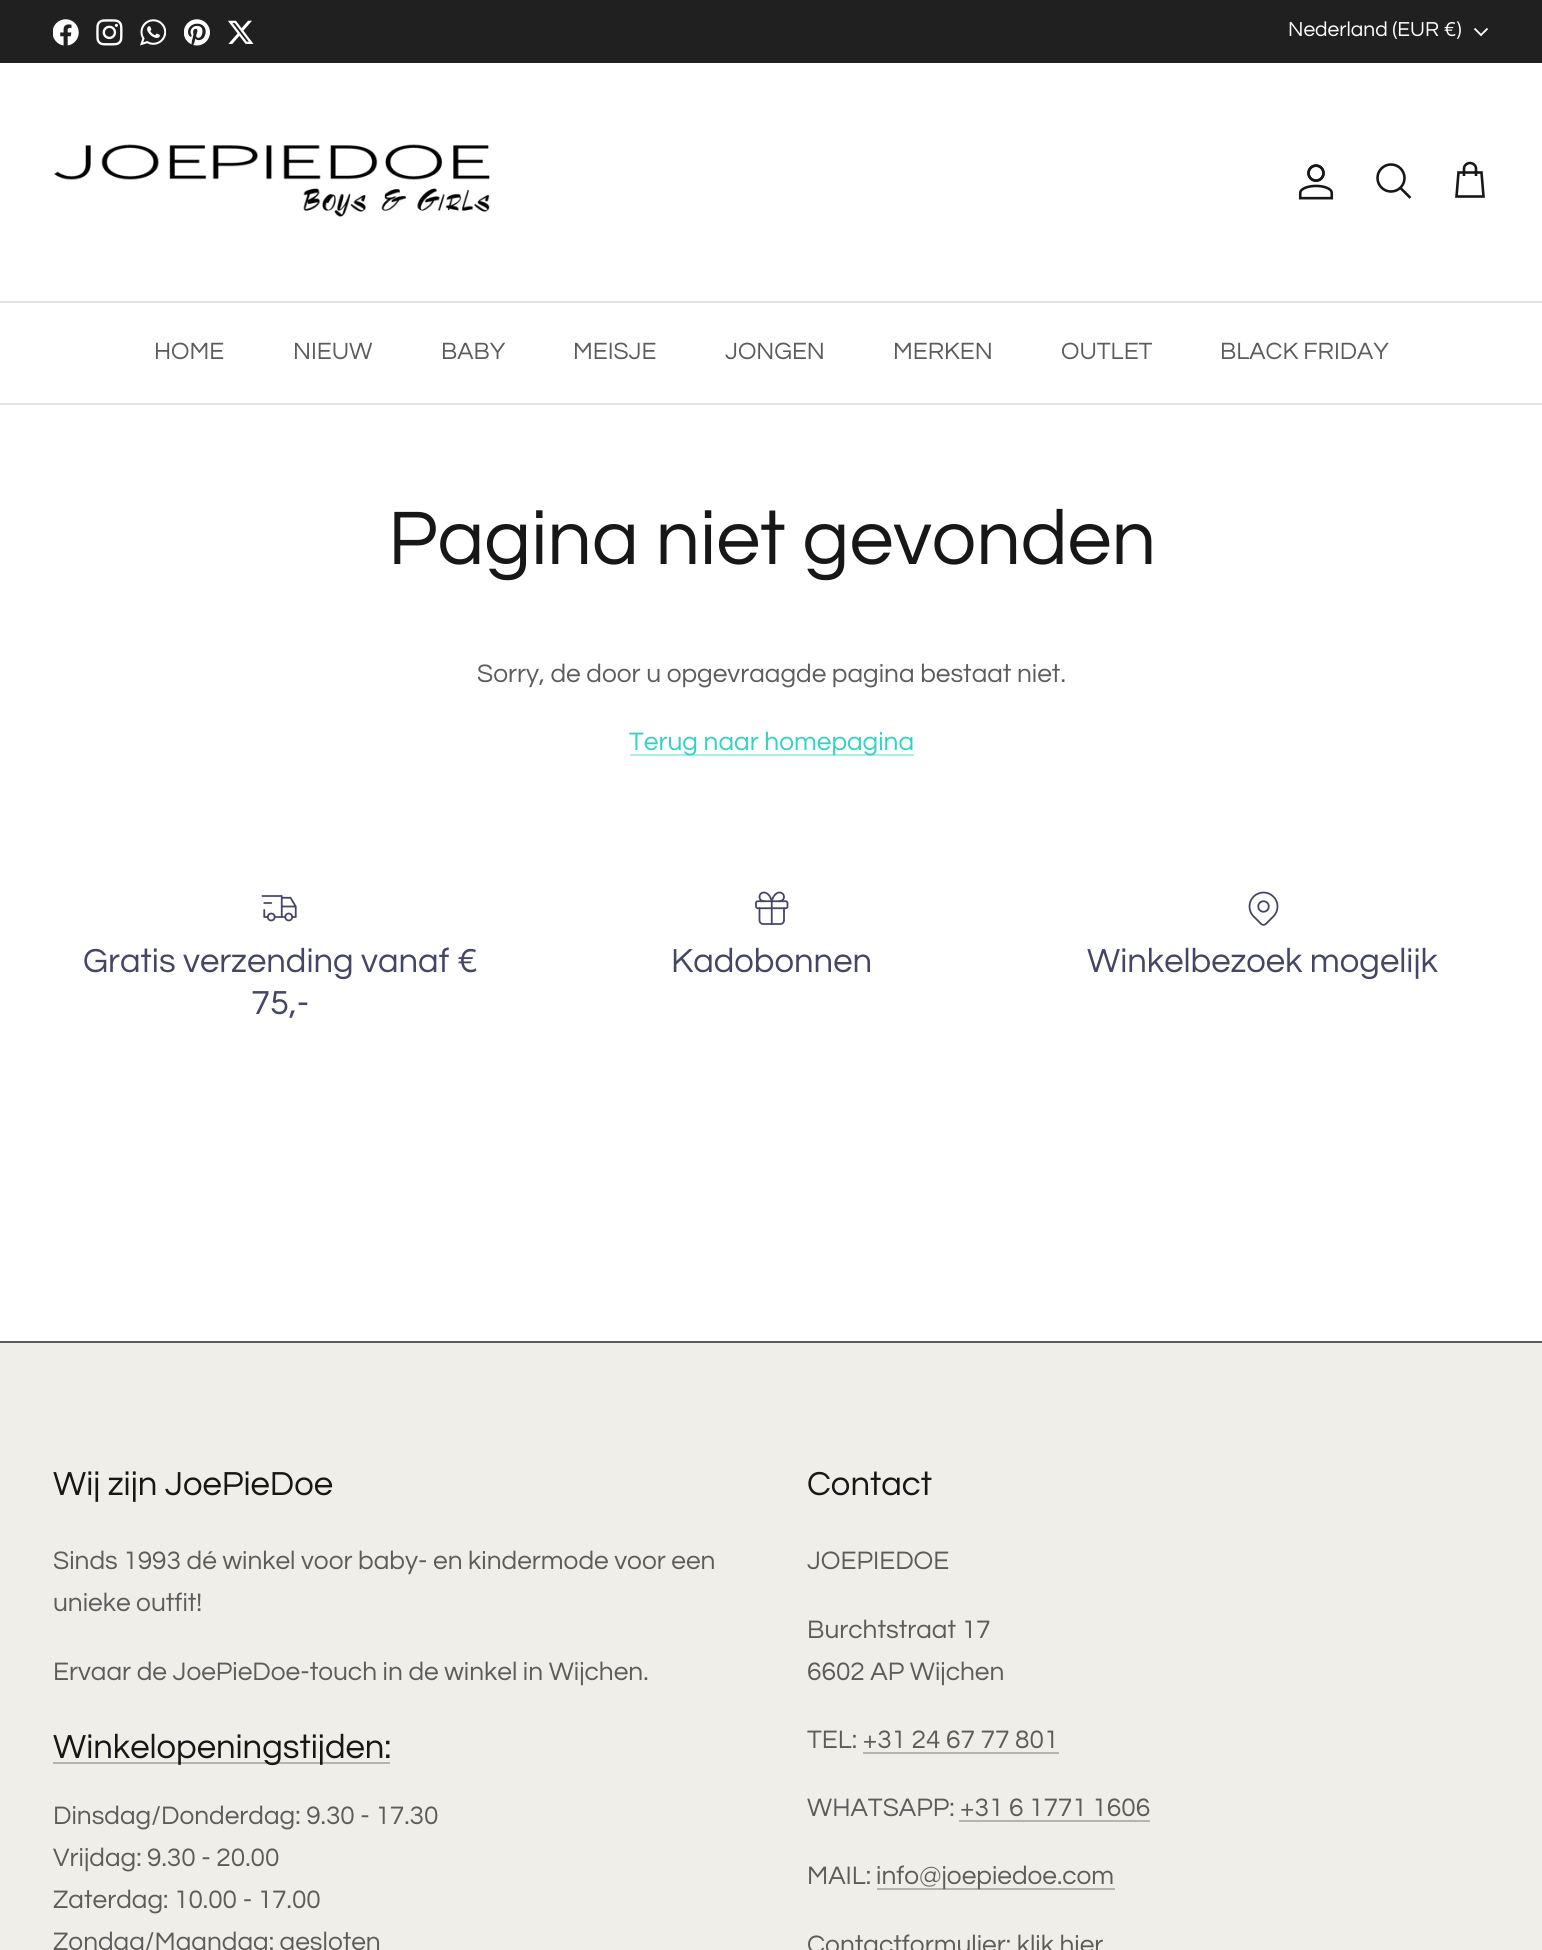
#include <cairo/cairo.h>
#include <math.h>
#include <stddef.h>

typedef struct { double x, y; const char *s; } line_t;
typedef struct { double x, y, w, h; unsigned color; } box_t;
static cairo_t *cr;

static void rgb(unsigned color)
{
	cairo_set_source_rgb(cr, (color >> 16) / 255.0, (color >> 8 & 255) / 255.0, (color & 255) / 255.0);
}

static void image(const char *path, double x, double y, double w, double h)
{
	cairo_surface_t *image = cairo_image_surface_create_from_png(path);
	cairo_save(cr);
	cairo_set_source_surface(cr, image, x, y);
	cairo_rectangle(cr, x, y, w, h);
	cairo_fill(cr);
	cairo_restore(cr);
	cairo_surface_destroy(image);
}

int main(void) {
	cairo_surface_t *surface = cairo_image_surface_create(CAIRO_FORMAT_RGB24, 1542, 1950);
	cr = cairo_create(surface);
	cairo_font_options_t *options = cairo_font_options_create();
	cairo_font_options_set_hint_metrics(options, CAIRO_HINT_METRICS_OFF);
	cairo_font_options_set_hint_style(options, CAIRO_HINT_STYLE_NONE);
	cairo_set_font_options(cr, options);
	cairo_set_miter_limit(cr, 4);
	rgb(0xffffff);
	cairo_paint(cr);
	rgb(0x202020);
	cairo_rectangle(cr, 0, 0, 1542, 63);
	cairo_fill(cr);
	image("img/1.png", 53, 19, 26, 27);
	image("img/2.png", 96, 19, 27, 27);
	image("img/3.png", 140, 19, 26, 27);
	image("img/4.png", 184, 19, 26, 27);
	image("img/5.png", 228, 20, 26, 24);
	cairo_new_path(cr);
	cairo_move_to(cr, 1487.5, 28.5);
	cairo_line_to(cr, 1481, 35);
	cairo_line_to(cr, 1474.5, 28.5);
	rgb(0xffffff);
	cairo_set_line_width(cr, 1.8);
	cairo_stroke(cr);
	rgb(0xdfe3e8);
	cairo_rectangle(cr, 0, 301, 1542, 2);
	cairo_fill(cr);
	image("img/6.png", 54, 144, 436, 73);
	image("img/7.png", 1298, 164, 36, 36);
	cairo_arc(cr, 1391, 178, 13.5, 0, 2 * M_PI);
	rgb(0x171717);
	cairo_set_line_width(cr, 2.6);
	cairo_stroke(cr);
	cairo_new_path(cr);
	cairo_move_to(cr, 1401.5, 189);
	cairo_line_to(cr, 1409.5, 197);
	cairo_set_line_cap(cr, CAIRO_LINE_CAP_SQUARE);
	cairo_stroke(cr);
	cairo_new_path(cr);
	cairo_move_to(cr, 1476, 176);
	cairo_line_to(cr, 1476, 168.5);
	cairo_curve_to(cr, 1476, 165.5, 1473, 163, 1470, 163);
	cairo_curve_to(cr, 1467, 163, 1464, 165.5, 1464, 168.5);
	cairo_line_to(cr, 1464, 176);
	cairo_move_to(cr, 1458.5, 172.5);
	cairo_line_to(cr, 1481.5, 172.5);
	cairo_line_to(cr, 1483.5, 196.5);
	cairo_line_to(cr, 1456.5, 196.5);
	cairo_close_path(cr);
	cairo_set_line_cap(cr, CAIRO_LINE_CAP_BUTT);
	cairo_stroke(cr);
	rgb(0xdfe3e8);
	cairo_rectangle(cr, 0, 403, 1542, 2);
	cairo_fill(cr);
	rgb(0xabeee7);
	cairo_rectangle(cr, 630, 754, 284, 2);
	cairo_fill(cr);
	image("img/8.png", 261, 895, 36, 27);
	image("img/9.png", 755, 891, 34, 34);
	image("img/10.png", 1248, 891, 31, 35);
	{
		static const box_t items[] = {
			{0, 1343, 1542, 607, 0xf0eee8},
			{0, 1341, 1542, 2, 0x5c5c5c},
			{53, 1762, 337, 2, 0xb5b4b0},
			{863, 1752, 196, 2, 0xb5b4b0},
			{959, 1820, 191, 2, 0xb5b4b0},
			{877, 1888, 238, 2, 0xb5b4b0},
		};
		for (size_t i = 0; i < sizeof items / sizeof *items; i++) {
			rgb(items[i].color);
			cairo_rectangle(cr, items[i].x, items[i].y, items[i].w, items[i].h);
			cairo_fill(cr);
		}
	}
	cairo_select_font_face(cr, "Questrial", CAIRO_FONT_SLANT_NORMAL, CAIRO_FONT_WEIGHT_NORMAL);
	cairo_set_font_size(cr, 21);
	rgb(0xffffff);
	cairo_move_to(cr, 1288, 36);
	cairo_show_text(cr, "Nederland (EUR €)");
	cairo_set_font_size(cr, 24.5);
	rgb(0x5c5c5c);
	{
		static const line_t items[] = {
			{154, 359, "HOME"},
			{293, 359, "NIEUW"},
			{441, 359, "BABY"},
			{573, 359, "MEISJE"},
			{725, 359, "JONGEN"},
			{893, 359, "MERKEN"},
			{1061, 359, "OUTLET"},
			{1220, 359, "BLACK FRIDAY"},
		};
		for (size_t i = 0; i < sizeof items / sizeof *items; i++) {
			cairo_move_to(cr, items[i].x, items[i].y);
			cairo_show_text(cr, items[i].s);
		}
	}
	cairo_set_font_size(cr, 78.75);
	rgb(0x171717);
	cairo_move_to(cr, 388, 564);
	cairo_show_text(cr, "Pagina niet gevonden");
	cairo_set_font_size(cr, 26.25);
	rgb(0x5c5c5c);
	cairo_move_to(cr, 477, 682);
	cairo_show_text(cr, "Sorry, de door u opgevraagde pagina bestaat niet.");
	rgb(0x2dd4c4);
	cairo_move_to(cr, 629, 750);
	cairo_show_text(cr, "Terug naar homepagina");
	cairo_set_font_size(cr, 34.6);
	rgb(0x454564);
	{
		static const line_t items[] = {
			{83, 972, "Gratis verzending vanaf €"},
			{251, 1014, "75,-"},
			{671, 972, "Kadobonnen"},
			{1087, 972, "Winkelbezoek mogelijk"},
		};
		for (size_t i = 0; i < sizeof items / sizeof *items; i++) {
			cairo_move_to(cr, items[i].x, items[i].y);
			cairo_show_text(cr, items[i].s);
		}
	}
	rgb(0x171717);
	cairo_move_to(cr, 53, 1495);
	cairo_show_text(cr, "Wij zijn JoePieDoe");
	cairo_set_font_size(cr, 26.25);
	rgb(0x5c5c5c);
	{
		static const line_t items[] = {
			{53, 1569, "Sinds 1993 dé winkel voor baby- en kindermode voor een"},
			{53, 1611, "unieke outfit!"},
			{53, 1680, "Ervaar de JoePieDoe-touch in de winkel in Wijchen."},
		};
		for (size_t i = 0; i < sizeof items / sizeof *items; i++) {
			cairo_move_to(cr, items[i].x, items[i].y);
			cairo_show_text(cr, items[i].s);
		}
	}
	cairo_set_font_size(cr, 34.6);
	rgb(0x171717);
	cairo_move_to(cr, 53, 1758);
	cairo_show_text(cr, "Winkelopeningstijden:");
	cairo_set_font_size(cr, 26.25);
	rgb(0x5c5c5c);
	{
		static const line_t items[] = {
			{53, 1824, "Dinsdag/Donderdag: 9.30 - 17.30"},
			{53, 1866, "Vrijdag: 9.30 - 20.00"},
			{53, 1908, "Zaterdag: 10.00 - 17.00"},
			{53, 1950, "Zondag/Maandag: gesloten"},
		};
		for (size_t i = 0; i < sizeof items / sizeof *items; i++) {
			cairo_move_to(cr, items[i].x, items[i].y);
			cairo_show_text(cr, items[i].s);
		}
	}
	cairo_set_font_size(cr, 34.6);
	rgb(0x171717);
	cairo_move_to(cr, 807, 1495);
	cairo_show_text(cr, "Contact");
	cairo_set_font_size(cr, 26.25);
	rgb(0x5c5c5c);
	{
		static const line_t items[] = {
			{807, 1569, "JOEPIEDOE"},
			{807, 1638, "Burchtstraat 17"},
			{807, 1680, "6602 AP Wijchen"},
			{807, 1748, "TEL: +31 24 67 77 801"},
			{807, 1816, "WHATSAPP: +31 6 1771 1606"},
			{807, 1884, "MAIL:"},
			{876, 1884, "info@joepiedoe.com"},
			{807, 1953, "Contactformulier: klik hier"},
		};
		for (size_t i = 0; i < sizeof items / sizeof *items; i++) {
			cairo_move_to(cr, items[i].x, items[i].y);
			cairo_show_text(cr, items[i].s);
		}
	}
	cairo_surface_write_to_png(surface, "page.png");
	cairo_font_options_destroy(options);
	cairo_destroy(cr);
	cairo_surface_destroy(surface);
	return 0;
}
